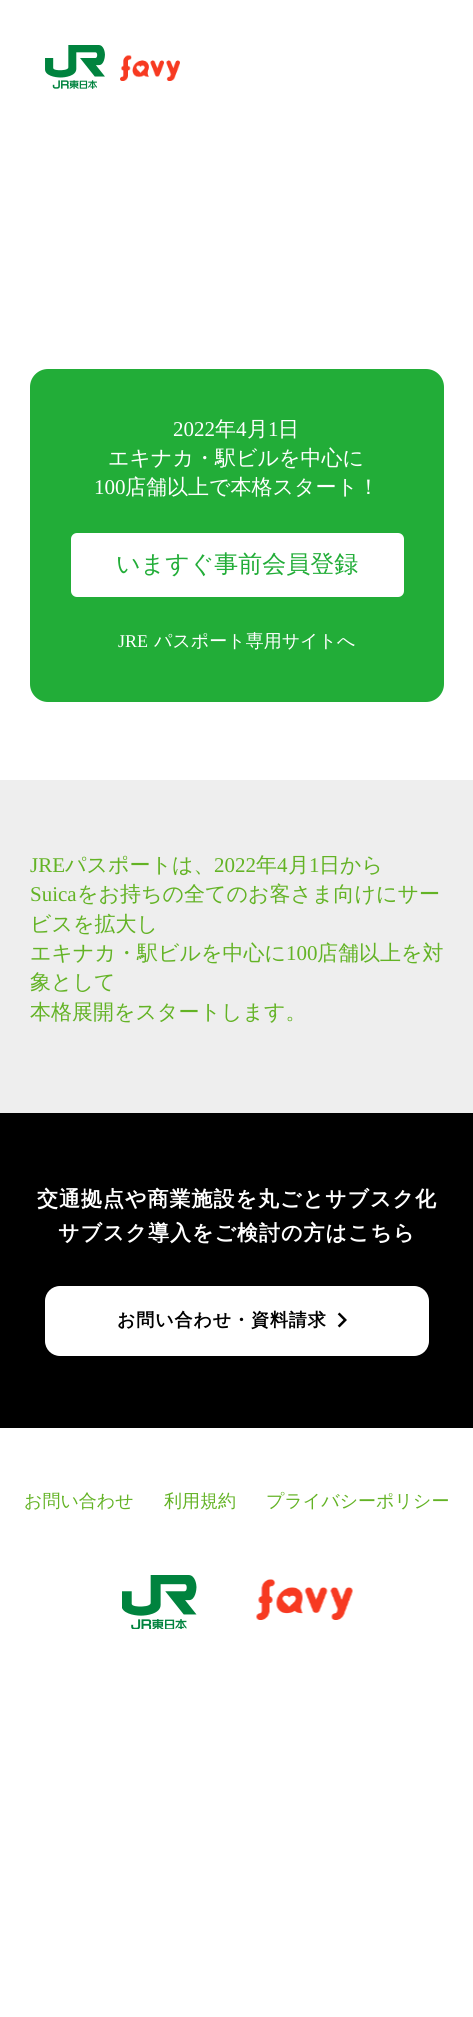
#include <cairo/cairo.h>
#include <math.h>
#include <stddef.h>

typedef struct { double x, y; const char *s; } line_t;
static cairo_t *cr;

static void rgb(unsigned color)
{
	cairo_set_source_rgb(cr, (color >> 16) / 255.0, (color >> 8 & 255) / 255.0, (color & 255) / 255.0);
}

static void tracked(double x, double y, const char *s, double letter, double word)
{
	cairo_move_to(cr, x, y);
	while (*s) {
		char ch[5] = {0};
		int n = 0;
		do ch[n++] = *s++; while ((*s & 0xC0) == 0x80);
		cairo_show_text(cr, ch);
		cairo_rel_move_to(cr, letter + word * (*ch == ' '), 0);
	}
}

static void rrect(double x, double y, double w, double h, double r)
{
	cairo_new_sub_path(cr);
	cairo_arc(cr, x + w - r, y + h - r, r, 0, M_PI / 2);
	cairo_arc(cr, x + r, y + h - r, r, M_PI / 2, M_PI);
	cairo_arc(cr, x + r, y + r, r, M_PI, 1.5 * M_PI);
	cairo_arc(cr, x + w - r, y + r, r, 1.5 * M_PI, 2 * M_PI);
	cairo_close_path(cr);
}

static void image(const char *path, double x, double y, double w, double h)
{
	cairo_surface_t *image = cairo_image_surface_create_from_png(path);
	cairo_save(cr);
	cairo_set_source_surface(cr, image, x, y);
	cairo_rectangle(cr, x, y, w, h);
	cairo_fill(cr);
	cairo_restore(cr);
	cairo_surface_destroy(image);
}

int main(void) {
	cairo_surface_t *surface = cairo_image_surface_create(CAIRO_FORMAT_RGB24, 473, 2017);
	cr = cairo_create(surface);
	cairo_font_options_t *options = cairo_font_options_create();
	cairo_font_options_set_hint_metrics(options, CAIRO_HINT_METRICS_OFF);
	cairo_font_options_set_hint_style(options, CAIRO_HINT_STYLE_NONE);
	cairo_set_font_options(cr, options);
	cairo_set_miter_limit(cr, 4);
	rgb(0xffffff);
	cairo_paint(cr);
	image("img/1.png", 45, 45, 60, 44);
	image("img/2.png", 120, 55, 60, 26);
	rgb(0x22ad38);
	rrect(30, 369, 414, 333, 18);
	cairo_fill(cr);
	rgb(0xffffff);
	rrect(71, 533, 333, 64, 6);
	cairo_fill(cr);
	rgb(0xeeeeee);
	cairo_rectangle(cr, 0, 780, 473, 333);
	cairo_fill(cr);
	rgb(0x000000);
	cairo_rectangle(cr, 0, 1113, 473, 315);
	cairo_fill(cr);
	rgb(0xffffff);
	rrect(45, 1286, 384, 70, 15);
	cairo_fill(cr);
	image("img/3.png", 337, 1312, 10, 16);
	image("img/4.png", 122, 1575, 75, 54);
	image("img/5.png", 256, 1579, 97, 41);
	cairo_select_font_face(cr, "Liberation Serif", CAIRO_FONT_SLANT_NORMAL, CAIRO_FONT_WEIGHT_NORMAL);
	cairo_set_font_size(cr, 21);
	cairo_move_to(cr, 173, 436);
	cairo_show_text(cr, "2022");
	cairo_select_font_face(cr, "WenQuanYi Zen Hei Medium", CAIRO_FONT_SLANT_NORMAL, CAIRO_FONT_WEIGHT_NORMAL);
	cairo_move_to(cr, 215, 436);
	cairo_show_text(cr, "年");
	cairo_select_font_face(cr, "Liberation Serif", CAIRO_FONT_SLANT_NORMAL, CAIRO_FONT_WEIGHT_NORMAL);
	cairo_move_to(cr, 236, 436);
	cairo_show_text(cr, "4");
	cairo_select_font_face(cr, "WenQuanYi Zen Hei Medium", CAIRO_FONT_SLANT_NORMAL, CAIRO_FONT_WEIGHT_NORMAL);
	cairo_move_to(cr, 247, 436);
	cairo_show_text(cr, "月");
	cairo_select_font_face(cr, "Liberation Serif", CAIRO_FONT_SLANT_NORMAL, CAIRO_FONT_WEIGHT_NORMAL);
	cairo_move_to(cr, 268, 436);
	cairo_show_text(cr, "1");
	cairo_select_font_face(cr, "WenQuanYi Zen Hei Medium", CAIRO_FONT_SLANT_NORMAL, CAIRO_FONT_WEIGHT_NORMAL);
	cairo_move_to(cr, 278, 436);
	cairo_show_text(cr, "日");
	cairo_move_to(cr, 108, 465);
	cairo_show_text(cr, "エキナカ・駅ビルを中心に");
	cairo_select_font_face(cr, "Liberation Serif", CAIRO_FONT_SLANT_NORMAL, CAIRO_FONT_WEIGHT_NORMAL);
	cairo_move_to(cr, 94, 494);
	cairo_show_text(cr, "100");
	cairo_select_font_face(cr, "WenQuanYi Zen Hei Medium", CAIRO_FONT_SLANT_NORMAL, CAIRO_FONT_WEIGHT_NORMAL);
	cairo_move_to(cr, 125, 494);
	cairo_show_text(cr, "店舗以上で本格スタート！");
	cairo_set_font_size(cr, 24);
	rgb(0x22ad38);
	cairo_move_to(cr, 116, 572);
	cairo_show_text(cr, "いますぐ事前会員登録");
	cairo_select_font_face(cr, "Liberation Serif", CAIRO_FONT_SLANT_NORMAL, CAIRO_FONT_WEIGHT_NORMAL);
	cairo_set_font_size(cr, 18);
	rgb(0xffffff);
	cairo_move_to(cr, 118, 647);
	cairo_show_text(cr, "JRE");
	cairo_select_font_face(cr, "WenQuanYi Zen Hei Medium", CAIRO_FONT_SLANT_NORMAL, CAIRO_FONT_WEIGHT_NORMAL);
	cairo_move_to(cr, 154, 647);
	cairo_show_text(cr, "パスポート専用サイトへ");
	cairo_select_font_face(cr, "Liberation Serif", CAIRO_FONT_SLANT_NORMAL, CAIRO_FONT_WEIGHT_NORMAL);
	cairo_set_font_size(cr, 21);
	rgb(0x63b325);
	cairo_move_to(cr, 30, 872);
	cairo_show_text(cr, "JRE");
	cairo_select_font_face(cr, "WenQuanYi Zen Hei Medium", CAIRO_FONT_SLANT_NORMAL, CAIRO_FONT_WEIGHT_NORMAL);
	cairo_move_to(cr, 65, 872);
	cairo_show_text(cr, "パスポートは、");
	cairo_select_font_face(cr, "Liberation Serif", CAIRO_FONT_SLANT_NORMAL, CAIRO_FONT_WEIGHT_NORMAL);
	cairo_move_to(cr, 214, 872);
	cairo_show_text(cr, "2022");
	cairo_select_font_face(cr, "WenQuanYi Zen Hei Medium", CAIRO_FONT_SLANT_NORMAL, CAIRO_FONT_WEIGHT_NORMAL);
	cairo_move_to(cr, 256, 872);
	cairo_show_text(cr, "年");
	cairo_select_font_face(cr, "Liberation Serif", CAIRO_FONT_SLANT_NORMAL, CAIRO_FONT_WEIGHT_NORMAL);
	cairo_move_to(cr, 277, 872);
	cairo_show_text(cr, "4");
	cairo_select_font_face(cr, "WenQuanYi Zen Hei Medium", CAIRO_FONT_SLANT_NORMAL, CAIRO_FONT_WEIGHT_NORMAL);
	cairo_move_to(cr, 288, 872);
	cairo_show_text(cr, "月");
	cairo_select_font_face(cr, "Liberation Serif", CAIRO_FONT_SLANT_NORMAL, CAIRO_FONT_WEIGHT_NORMAL);
	cairo_move_to(cr, 309, 872);
	cairo_show_text(cr, "1");
	cairo_select_font_face(cr, "WenQuanYi Zen Hei Medium", CAIRO_FONT_SLANT_NORMAL, CAIRO_FONT_WEIGHT_NORMAL);
	cairo_move_to(cr, 319, 872);
	cairo_show_text(cr, "日から");
	cairo_select_font_face(cr, "Liberation Serif", CAIRO_FONT_SLANT_NORMAL, CAIRO_FONT_WEIGHT_NORMAL);
	cairo_move_to(cr, 30, 901);
	cairo_show_text(cr, "Suica");
	cairo_select_font_face(cr, "WenQuanYi Zen Hei Medium", CAIRO_FONT_SLANT_NORMAL, CAIRO_FONT_WEIGHT_NORMAL);
	{
		static const line_t items[] = {
			{77, 901, "をお持ちの全てのお客さま向けにサー"},
			{30, 931, "ビスを拡大し"},
			{30, 960, "エキナカ・駅ビルを中心に"},
		};
		for (size_t i = 0; i < sizeof items / sizeof *items; i++) {
			cairo_move_to(cr, items[i].x, items[i].y);
			cairo_show_text(cr, items[i].s);
		}
	}
	cairo_select_font_face(cr, "Liberation Serif", CAIRO_FONT_SLANT_NORMAL, CAIRO_FONT_WEIGHT_NORMAL);
	cairo_move_to(cr, 286, 960);
	cairo_show_text(cr, "100");
	cairo_select_font_face(cr, "WenQuanYi Zen Hei Medium", CAIRO_FONT_SLANT_NORMAL, CAIRO_FONT_WEIGHT_NORMAL);
	{
		static const line_t items[] = {
			{317, 960, "店舗以上を対"},
			{30, 989, "象として"},
			{30, 1019, "本格展開をスタートします。"},
		};
		for (size_t i = 0; i < sizeof items / sizeof *items; i++) {
			cairo_move_to(cr, items[i].x, items[i].y);
			cairo_show_text(cr, items[i].s);
		}
	}
	cairo_select_font_face(cr, "WenQuanYi Zen Hei", CAIRO_FONT_SLANT_NORMAL, CAIRO_FONT_WEIGHT_BOLD);
	rgb(0xffffff);
	tracked(37, 1206, "交通拠点や商業施設を丸ごとサブスク化", 1, 0);
	tracked(58, 1240, "サブスク導入をご検討の方はこちら", 1, 0);
	cairo_set_font_size(cr, 18);
	rgb(0x000000);
	tracked(117, 1326, "お問い合わせ・資料請求", 0.9, 0);
	cairo_select_font_face(cr, "WenQuanYi Zen Hei Medium", CAIRO_FONT_SLANT_NORMAL, CAIRO_FONT_WEIGHT_NORMAL);
	rgb(0x63b325);
	{
		static const line_t items[] = {
			{24, 1507, "お問い合わせ"},
			{164, 1507, "利用規約"},
			{266, 1507, "プライバシーポリシー"},
		};
		for (size_t i = 0; i < sizeof items / sizeof *items; i++) {
			cairo_move_to(cr, items[i].x, items[i].y);
			cairo_show_text(cr, items[i].s);
		}
	}
	cairo_surface_write_to_png(surface, "page.png");
	cairo_font_options_destroy(options);
	cairo_destroy(cr);
	cairo_surface_destroy(surface);
	return 0;
}
